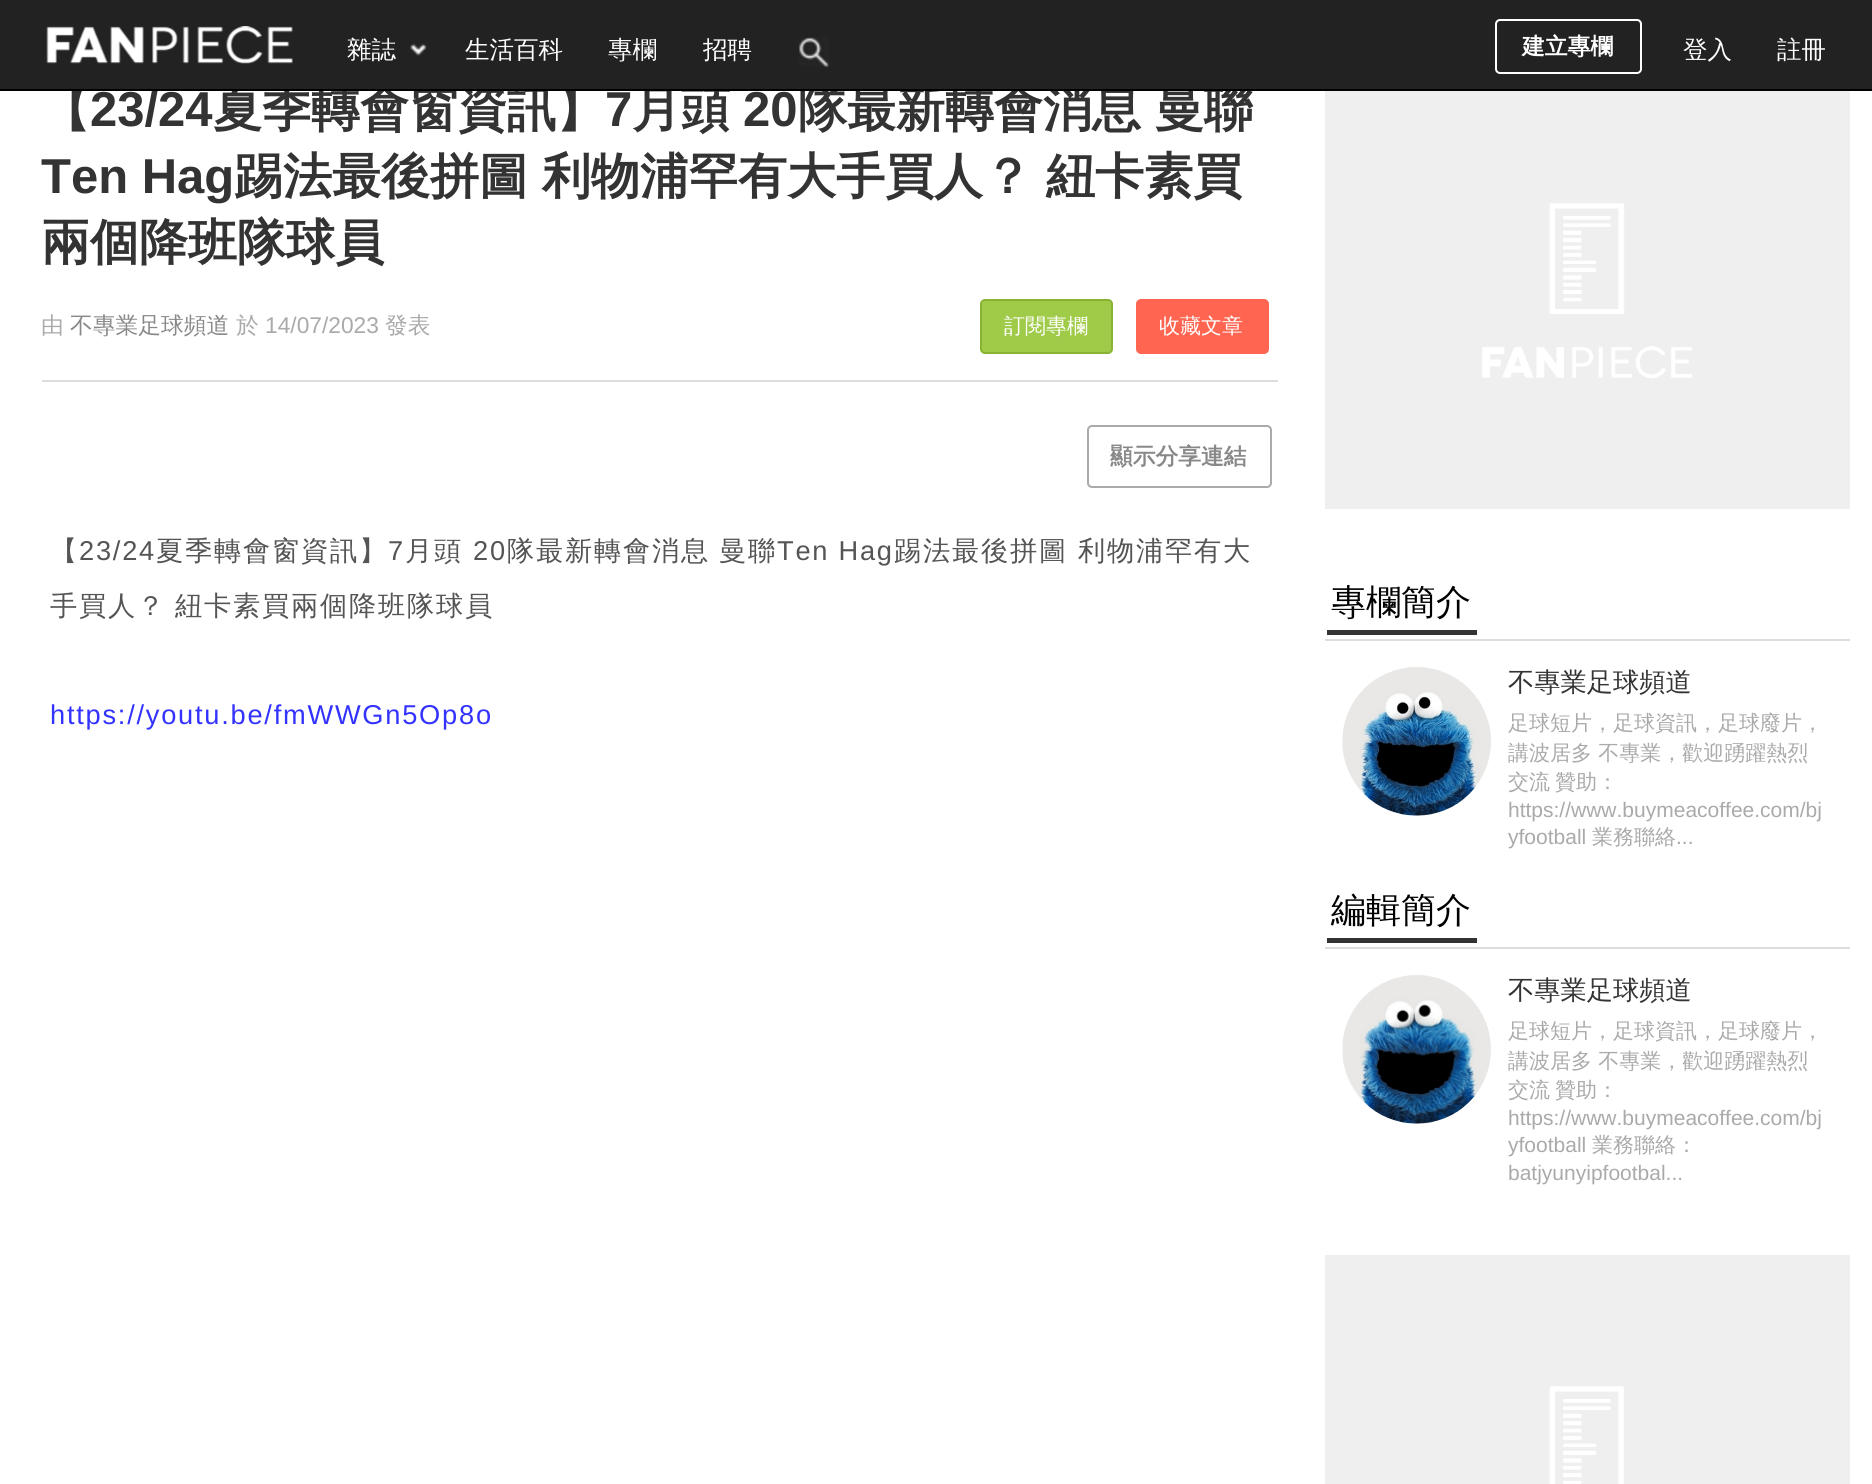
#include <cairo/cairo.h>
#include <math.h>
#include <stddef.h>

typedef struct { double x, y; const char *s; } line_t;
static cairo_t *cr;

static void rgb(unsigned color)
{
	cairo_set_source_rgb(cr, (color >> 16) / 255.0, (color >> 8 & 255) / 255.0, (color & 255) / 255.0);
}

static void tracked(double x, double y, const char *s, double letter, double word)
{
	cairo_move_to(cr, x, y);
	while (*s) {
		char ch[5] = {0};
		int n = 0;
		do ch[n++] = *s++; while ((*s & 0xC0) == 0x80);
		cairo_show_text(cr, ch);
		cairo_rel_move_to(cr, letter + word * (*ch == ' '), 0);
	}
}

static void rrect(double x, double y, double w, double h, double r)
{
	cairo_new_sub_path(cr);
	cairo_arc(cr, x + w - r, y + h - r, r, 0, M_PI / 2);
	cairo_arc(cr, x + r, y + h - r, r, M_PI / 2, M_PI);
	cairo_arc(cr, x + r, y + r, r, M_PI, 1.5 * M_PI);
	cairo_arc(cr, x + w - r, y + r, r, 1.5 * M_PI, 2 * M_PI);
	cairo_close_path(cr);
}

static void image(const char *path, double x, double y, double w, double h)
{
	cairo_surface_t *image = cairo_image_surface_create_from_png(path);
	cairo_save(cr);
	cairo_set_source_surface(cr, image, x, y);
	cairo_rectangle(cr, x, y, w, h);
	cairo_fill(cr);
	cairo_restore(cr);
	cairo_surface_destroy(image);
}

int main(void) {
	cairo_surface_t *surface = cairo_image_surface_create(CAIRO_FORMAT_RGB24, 1872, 1484);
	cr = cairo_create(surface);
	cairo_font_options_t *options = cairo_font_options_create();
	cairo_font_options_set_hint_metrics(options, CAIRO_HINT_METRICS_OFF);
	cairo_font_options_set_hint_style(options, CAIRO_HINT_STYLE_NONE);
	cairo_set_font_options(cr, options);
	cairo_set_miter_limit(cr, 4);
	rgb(0xffffff);
	cairo_paint(cr);
	rgb(0xdddddd);
	cairo_rectangle(cr, 42, 380, 1236, 2);
	cairo_fill(cr);
	rgb(0x9fcb48);
	rrect(981, 300, 131, 53, 4);
	cairo_fill_preserve(cr);
	rgb(0x88b334);
	cairo_stroke(cr);
	rgb(0xff6550);
	rrect(1137, 300, 131, 53, 4);
	cairo_fill_preserve(cr);
	cairo_stroke(cr);
	rrect(1088, 426, 183, 61, 4);
	rgb(0xaaaaaa);
	cairo_stroke(cr);
	rgb(0xefefef);
	cairo_rectangle(cr, 1325, 91, 525, 418);
	cairo_fill(cr);
	image("img/4.png", 1482, 203, 211, 176);
	rgb(0xdddddd);
	cairo_rectangle(cr, 1325, 639, 525, 2);
	cairo_fill(cr);
	rgb(0x333333);
	cairo_rectangle(cr, 1327, 630, 150, 5);
	cairo_fill(cr);
	image("img/5.png", 1342, 667, 149, 149);
	rgb(0xdddddd);
	cairo_rectangle(cr, 1325, 947, 525, 2);
	cairo_fill(cr);
	rgb(0x333333);
	cairo_rectangle(cr, 1327, 938, 150, 5);
	cairo_fill(cr);
	image("img/6.png", 1342, 975, 149, 149);
	rgb(0xefefef);
	cairo_rectangle(cr, 1325, 1255, 525, 229);
	cairo_fill(cr);
	image("img/7.png", 1549, 1386, 75, 98);
	cairo_select_font_face(cr, "WenQuanYi Zen Hei", CAIRO_FONT_SLANT_NORMAL, CAIRO_FONT_WEIGHT_BOLD);
	cairo_set_font_size(cr, 49);
	rgb(0x333333);
	cairo_move_to(cr, 41, 126);
	cairo_show_text(cr, "【");
	cairo_select_font_face(cr, "Liberation Sans", CAIRO_FONT_SLANT_NORMAL, CAIRO_FONT_WEIGHT_BOLD);
	cairo_move_to(cr, 90, 126);
	cairo_show_text(cr, "23/24");
	cairo_select_font_face(cr, "WenQuanYi Zen Hei", CAIRO_FONT_SLANT_NORMAL, CAIRO_FONT_WEIGHT_BOLD);
	cairo_move_to(cr, 213, 126);
	cairo_show_text(cr, "夏季轉會窗資訊】");
	cairo_select_font_face(cr, "Liberation Sans", CAIRO_FONT_SLANT_NORMAL, CAIRO_FONT_WEIGHT_BOLD);
	cairo_move_to(cr, 605, 126);
	cairo_show_text(cr, "7");
	cairo_select_font_face(cr, "WenQuanYi Zen Hei", CAIRO_FONT_SLANT_NORMAL, CAIRO_FONT_WEIGHT_BOLD);
	cairo_move_to(cr, 632, 126);
	cairo_show_text(cr, "月頭");
	cairo_select_font_face(cr, "Liberation Sans", CAIRO_FONT_SLANT_NORMAL, CAIRO_FONT_WEIGHT_BOLD);
	cairo_move_to(cr, 743, 126);
	cairo_show_text(cr, "20");
	cairo_select_font_face(cr, "WenQuanYi Zen Hei", CAIRO_FONT_SLANT_NORMAL, CAIRO_FONT_WEIGHT_BOLD);
	tracked(798, 126, "隊最新轉會消息 曼聯", 0, -1);
	rgb(0x222222);
	cairo_rectangle(cr, 0, 0, 1872, 89);
	cairo_fill(cr);
	rrect(1496, 20, 145, 53, 4);
	rgb(0xffffff);
	cairo_stroke(cr);
	cairo_set_font_size(cr, 22.75);
	cairo_move_to(cr, 1522, 54);
	cairo_show_text(cr, "建立專欄");
	cairo_select_font_face(cr, "WenQuanYi Zen Hei Medium", CAIRO_FONT_SLANT_NORMAL, CAIRO_FONT_WEIGHT_NORMAL);
	cairo_set_font_size(cr, 24.5);
	cairo_move_to(cr, 1683, 58);
	cairo_show_text(cr, "登入");
	cairo_move_to(cr, 1777, 58);
	cairo_show_text(cr, "註冊");
	image("img/3.png", 798, 37, 31, 31);
	{
		static const line_t items[] = {
			{703, 58, "招聘"},
			{608, 58, "專欄"},
			{465, 58, "生活百科"},
		};
		for (size_t i = 0; i < sizeof items / sizeof *items; i++) {
			cairo_move_to(cr, items[i].x, items[i].y);
			cairo_show_text(cr, items[i].s);
		}
	}
	image("img/2.png", 410, 43, 17, 13);
	cairo_move_to(cr, 347, 58);
	cairo_show_text(cr, "雜誌");
	image("img/1.png", 46, 26, 247, 38);
	rgb(0x000000);
	cairo_rectangle(cr, 0, 89, 1872, 2);
	cairo_fill(cr);
	cairo_select_font_face(cr, "Liberation Sans", CAIRO_FONT_SLANT_NORMAL, CAIRO_FONT_WEIGHT_BOLD);
	cairo_set_font_size(cr, 49);
	rgb(0x333333);
	cairo_move_to(cr, 41, 193);
	cairo_show_text(cr, "Ten Hag");
	cairo_select_font_face(cr, "WenQuanYi Zen Hei", CAIRO_FONT_SLANT_NORMAL, CAIRO_FONT_WEIGHT_BOLD);
	{
		static const line_t items[] = {
			{234, 193, "踢法最後拼圖"},
			{542, 193, "利物浦罕有大手買人？"},
			{1046, 193, "紐卡素買"},
			{41, 259, "兩個降班隊球員"},
		};
		for (size_t i = 0; i < sizeof items / sizeof *items; i++) {
			cairo_move_to(cr, items[i].x, items[i].y);
			cairo_show_text(cr, items[i].s);
		}
	}
	cairo_select_font_face(cr, "WenQuanYi Zen Hei Medium", CAIRO_FONT_SLANT_NORMAL, CAIRO_FONT_WEIGHT_NORMAL);
	cairo_set_font_size(cr, 22.75);
	rgb(0xaaaaaa);
	cairo_move_to(cr, 41, 333);
	cairo_show_text(cr, "由");
	rgb(0x888888);
	cairo_move_to(cr, 70, 333);
	cairo_show_text(cr, "不專業足球頻道");
	rgb(0xaaaaaa);
	cairo_move_to(cr, 236, 333);
	cairo_show_text(cr, "於");
	cairo_select_font_face(cr, "Liberation Sans", CAIRO_FONT_SLANT_NORMAL, CAIRO_FONT_WEIGHT_NORMAL);
	cairo_move_to(cr, 265, 333);
	cairo_show_text(cr, "14/07/2023");
	cairo_select_font_face(cr, "WenQuanYi Zen Hei Medium", CAIRO_FONT_SLANT_NORMAL, CAIRO_FONT_WEIGHT_NORMAL);
	cairo_move_to(cr, 385, 333);
	cairo_show_text(cr, "發表");
	cairo_set_font_size(cr, 21);
	rgb(0xffffff);
	cairo_move_to(cr, 1004, 333);
	cairo_show_text(cr, "訂閱專欄");
	cairo_move_to(cr, 1159, 333);
	cairo_show_text(cr, "收藏文章");
	cairo_select_font_face(cr, "WenQuanYi Zen Hei", CAIRO_FONT_SLANT_NORMAL, CAIRO_FONT_WEIGHT_BOLD);
	cairo_set_font_size(cr, 22.75);
	rgb(0x888888);
	cairo_move_to(cr, 1110, 464);
	cairo_show_text(cr, "顯示分享連結");
	cairo_select_font_face(cr, "WenQuanYi Zen Hei Medium", CAIRO_FONT_SLANT_NORMAL, CAIRO_FONT_WEIGHT_NORMAL);
	cairo_set_font_size(cr, 27.25);
	rgb(0x555555);
	tracked(50, 560, "【", 1.75, 0);
	cairo_select_font_face(cr, "Liberation Sans", CAIRO_FONT_SLANT_NORMAL, CAIRO_FONT_WEIGHT_NORMAL);
	tracked(79, 560, "23/24", 1.75, 0);
	cairo_select_font_face(cr, "WenQuanYi Zen Hei Medium", CAIRO_FONT_SLANT_NORMAL, CAIRO_FONT_WEIGHT_NORMAL);
	tracked(156, 560, "夏季轉會窗資訊】", 1.75, 0);
	cairo_select_font_face(cr, "Liberation Sans", CAIRO_FONT_SLANT_NORMAL, CAIRO_FONT_WEIGHT_NORMAL);
	tracked(388, 560, "7", 1.75, 0);
	cairo_select_font_face(cr, "WenQuanYi Zen Hei Medium", CAIRO_FONT_SLANT_NORMAL, CAIRO_FONT_WEIGHT_NORMAL);
	tracked(405, 560, "月頭", 1.75, 0);
	cairo_select_font_face(cr, "Liberation Sans", CAIRO_FONT_SLANT_NORMAL, CAIRO_FONT_WEIGHT_NORMAL);
	tracked(473, 560, "20", 1.75, 0);
	cairo_select_font_face(cr, "WenQuanYi Zen Hei Medium", CAIRO_FONT_SLANT_NORMAL, CAIRO_FONT_WEIGHT_NORMAL);
	tracked(507, 560, "隊最新轉會消息", 1.75, 0);
	tracked(719, 560, "曼聯", 1.75, 0);
	cairo_select_font_face(cr, "Liberation Sans", CAIRO_FONT_SLANT_NORMAL, CAIRO_FONT_WEIGHT_NORMAL);
	tracked(777, 560, "Ten Hag", 1.75, 0);
	cairo_select_font_face(cr, "WenQuanYi Zen Hei Medium", CAIRO_FONT_SLANT_NORMAL, CAIRO_FONT_WEIGHT_NORMAL);
	tracked(894, 560, "踢法最後拼圖", 1.75, 0);
	tracked(1078, 560, "利物浦罕有大", 1.75, 0);
	tracked(50, 615, "手買人？ 紐卡素買兩個降班隊球員", 1.75, -1);
	cairo_select_font_face(cr, "Liberation Sans", CAIRO_FONT_SLANT_NORMAL, CAIRO_FONT_WEIGHT_NORMAL);
	rgb(0x3333ff);
	tracked(50, 724, "https://youtu.be/fmWWGn5Op8o", 1.75, 0);
	cairo_select_font_face(cr, "WenQuanYi Zen Hei Medium", CAIRO_FONT_SLANT_NORMAL, CAIRO_FONT_WEIGHT_NORMAL);
	cairo_set_font_size(cr, 35);
	rgb(0x000000);
	cairo_move_to(cr, 1331, 614);
	cairo_show_text(cr, "專欄簡介");
	cairo_set_font_size(cr, 26.25);
	rgb(0x333333);
	cairo_move_to(cr, 1508, 691);
	cairo_show_text(cr, "不專業足球頻道");
	cairo_set_font_size(cr, 21);
	rgb(0xaaaaaa);
	{
		static const line_t items[] = {
			{1508, 730, "足球短片，足球資訊，足球廢片，"},
			{1508, 760, "講波居多 不專業，歡迎踴躍熱烈"},
			{1508, 789, "交流"},
			{1555, 789, "贊助："},
		};
		for (size_t i = 0; i < sizeof items / sizeof *items; i++) {
			cairo_move_to(cr, items[i].x, items[i].y);
			cairo_show_text(cr, items[i].s);
		}
	}
	cairo_select_font_face(cr, "Liberation Sans", CAIRO_FONT_SLANT_NORMAL, CAIRO_FONT_WEIGHT_NORMAL);
	cairo_move_to(cr, 1508, 817);
	cairo_show_text(cr, "https://www.buymeacoffee.com/bj");
	cairo_move_to(cr, 1508, 844);
	cairo_show_text(cr, "yfootball");
	cairo_select_font_face(cr, "WenQuanYi Zen Hei Medium", CAIRO_FONT_SLANT_NORMAL, CAIRO_FONT_WEIGHT_NORMAL);
	cairo_move_to(cr, 1592, 844);
	cairo_show_text(cr, "業務聯絡");
	cairo_select_font_face(cr, "Liberation Sans", CAIRO_FONT_SLANT_NORMAL, CAIRO_FONT_WEIGHT_NORMAL);
	cairo_move_to(cr, 1676, 844);
	cairo_show_text(cr, "...");
	cairo_select_font_face(cr, "WenQuanYi Zen Hei Medium", CAIRO_FONT_SLANT_NORMAL, CAIRO_FONT_WEIGHT_NORMAL);
	cairo_set_font_size(cr, 35);
	rgb(0x000000);
	cairo_move_to(cr, 1331, 922);
	cairo_show_text(cr, "編輯簡介");
	cairo_set_font_size(cr, 26.25);
	rgb(0x333333);
	cairo_move_to(cr, 1508, 999);
	cairo_show_text(cr, "不專業足球頻道");
	cairo_set_font_size(cr, 21);
	rgb(0xaaaaaa);
	{
		static const line_t items[] = {
			{1508, 1038, "足球短片，足球資訊，足球廢片，"},
			{1508, 1068, "講波居多 不專業，歡迎踴躍熱烈"},
			{1508, 1097, "交流"},
			{1555, 1097, "贊助："},
		};
		for (size_t i = 0; i < sizeof items / sizeof *items; i++) {
			cairo_move_to(cr, items[i].x, items[i].y);
			cairo_show_text(cr, items[i].s);
		}
	}
	cairo_select_font_face(cr, "Liberation Sans", CAIRO_FONT_SLANT_NORMAL, CAIRO_FONT_WEIGHT_NORMAL);
	cairo_move_to(cr, 1508, 1125);
	cairo_show_text(cr, "https://www.buymeacoffee.com/bj");
	cairo_move_to(cr, 1508, 1152);
	cairo_show_text(cr, "yfootball");
	cairo_select_font_face(cr, "WenQuanYi Zen Hei Medium", CAIRO_FONT_SLANT_NORMAL, CAIRO_FONT_WEIGHT_NORMAL);
	cairo_move_to(cr, 1592, 1152);
	cairo_show_text(cr, "業務聯絡：");
	cairo_select_font_face(cr, "Liberation Sans", CAIRO_FONT_SLANT_NORMAL, CAIRO_FONT_WEIGHT_NORMAL);
	cairo_move_to(cr, 1508, 1180);
	cairo_show_text(cr, "batjyunyipfootbal...");
	cairo_surface_write_to_png(surface, "page.png");
	cairo_font_options_destroy(options);
	cairo_destroy(cr);
	cairo_surface_destroy(surface);
	return 0;
}
